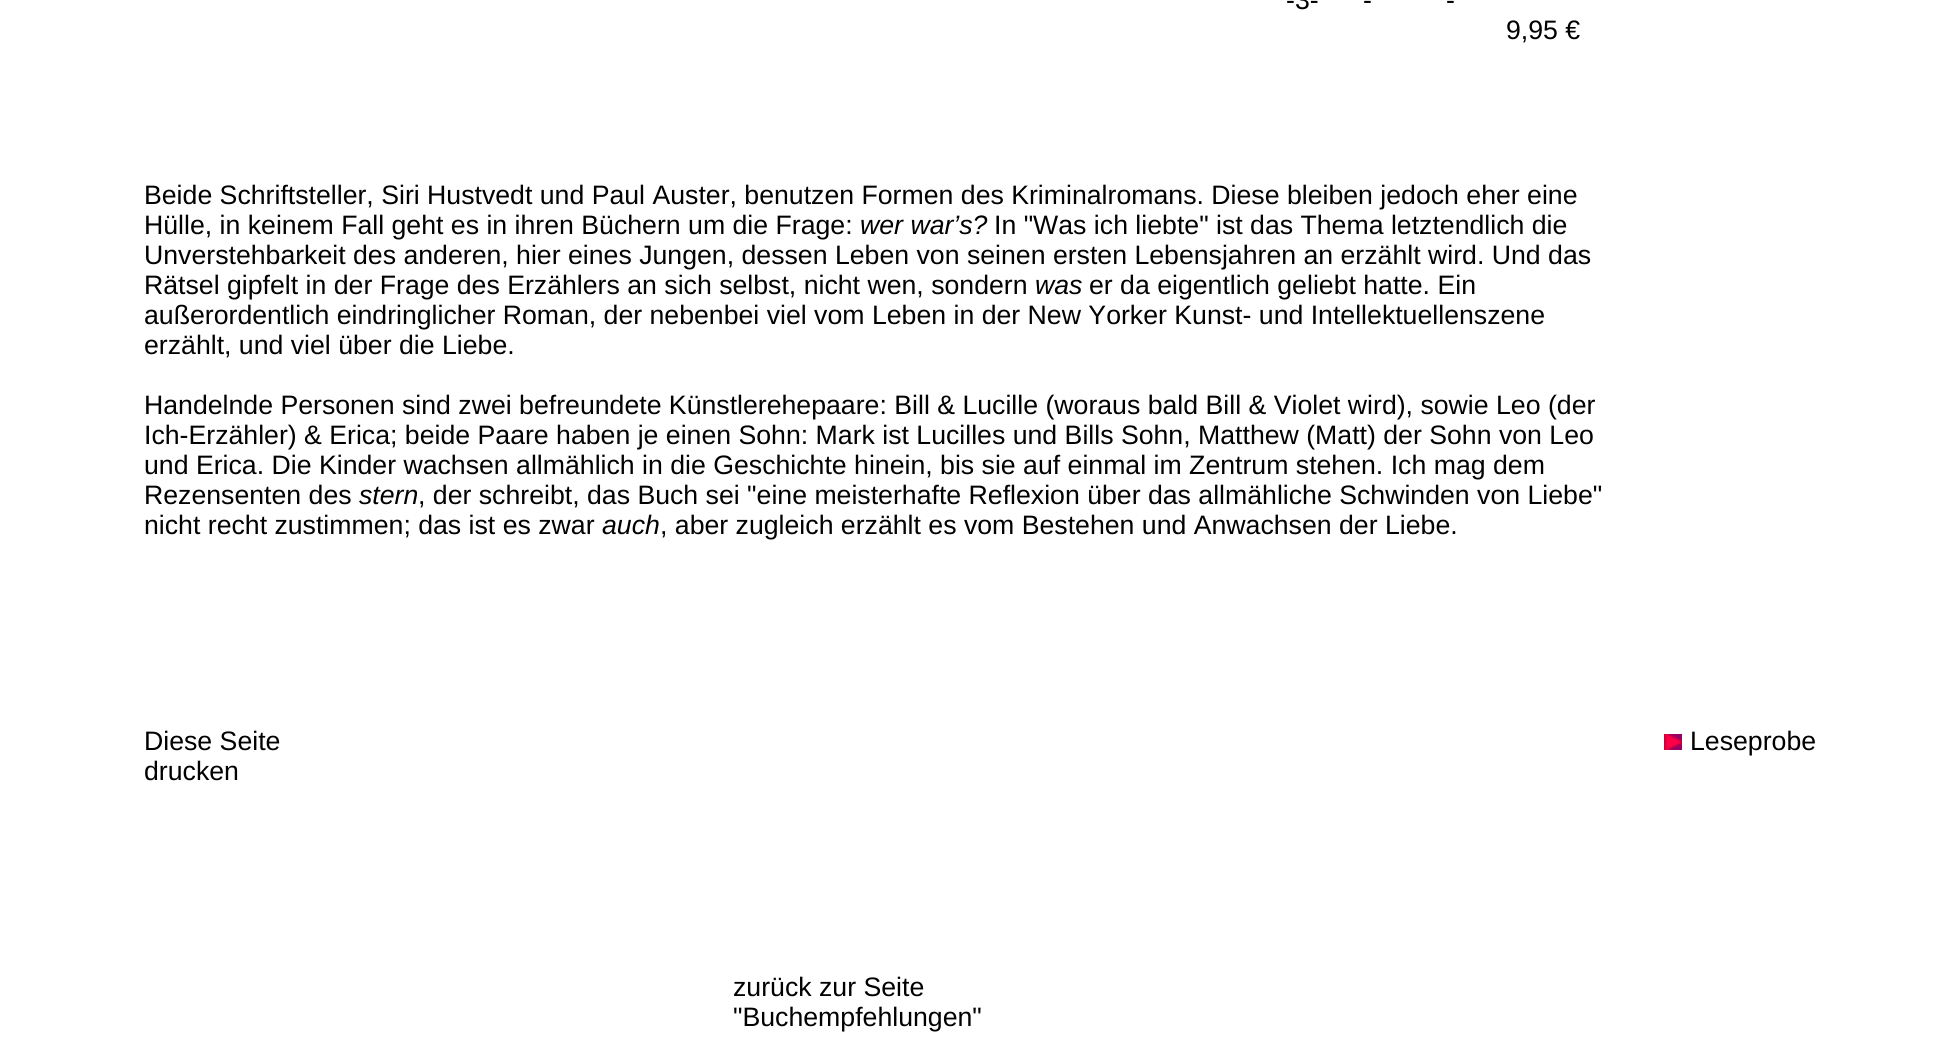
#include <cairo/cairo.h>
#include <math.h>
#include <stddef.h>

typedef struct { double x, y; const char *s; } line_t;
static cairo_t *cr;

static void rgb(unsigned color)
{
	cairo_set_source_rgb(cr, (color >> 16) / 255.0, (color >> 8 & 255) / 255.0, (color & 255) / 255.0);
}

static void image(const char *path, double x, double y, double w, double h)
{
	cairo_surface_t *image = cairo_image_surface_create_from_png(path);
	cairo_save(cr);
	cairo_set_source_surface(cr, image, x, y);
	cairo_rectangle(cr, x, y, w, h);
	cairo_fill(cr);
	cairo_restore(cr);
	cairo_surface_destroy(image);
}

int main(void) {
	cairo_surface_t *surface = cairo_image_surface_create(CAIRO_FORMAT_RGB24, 1959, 1059);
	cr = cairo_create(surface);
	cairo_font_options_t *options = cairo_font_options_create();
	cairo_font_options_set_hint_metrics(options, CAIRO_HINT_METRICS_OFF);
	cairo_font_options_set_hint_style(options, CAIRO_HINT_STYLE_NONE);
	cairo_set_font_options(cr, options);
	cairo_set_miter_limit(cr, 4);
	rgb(0xffffff);
	cairo_paint(cr);
	image("img/1.png", 1664, 734, 18, 16);
	cairo_select_font_face(cr, "Liberation Sans", CAIRO_FONT_SLANT_NORMAL, CAIRO_FONT_WEIGHT_NORMAL);
	cairo_set_font_size(cr, 26.67);
	rgb(0x000000);
	{
		static const line_t items[] = {
			{1286, 9, "-3-"},
			{1363, 9, "-"},
			{1446, 9, "-"},
			{1506, 39, "9,95 €"},
			{144, 204, "Beide Schriftsteller, Siri Hustvedt und Paul Auster, benutzen Formen des Kriminalromans. Diese bleiben jedoch eher eine"},
			{144, 234, "Hülle, in keinem Fall geht es in ihren Büchern um die Frage:"},
		};
		for (size_t i = 0; i < sizeof items / sizeof *items; i++) {
			cairo_move_to(cr, items[i].x, items[i].y);
			cairo_show_text(cr, items[i].s);
		}
	}
	cairo_select_font_face(cr, "Liberation Sans", CAIRO_FONT_SLANT_ITALIC, CAIRO_FONT_WEIGHT_NORMAL);
	cairo_move_to(cr, 860, 234);
	cairo_show_text(cr, "wer war’s?");
	cairo_select_font_face(cr, "Liberation Sans", CAIRO_FONT_SLANT_NORMAL, CAIRO_FONT_WEIGHT_NORMAL);
	{
		static const line_t items[] = {
			{994, 234, "In \"Was ich liebte\" ist das Thema letztendlich die"},
			{144, 264, "Unverstehbarkeit des anderen, hier eines Jungen, dessen Leben von seinen ersten Lebensjahren an erzählt wird. Und das"},
			{144, 294, "Rätsel gipfelt in der Frage des Erzählers an sich selbst, nicht wen, sondern"},
		};
		for (size_t i = 0; i < sizeof items / sizeof *items; i++) {
			cairo_move_to(cr, items[i].x, items[i].y);
			cairo_show_text(cr, items[i].s);
		}
	}
	cairo_select_font_face(cr, "Liberation Sans", CAIRO_FONT_SLANT_ITALIC, CAIRO_FONT_WEIGHT_NORMAL);
	cairo_move_to(cr, 1035, 294);
	cairo_show_text(cr, "was");
	cairo_select_font_face(cr, "Liberation Sans", CAIRO_FONT_SLANT_NORMAL, CAIRO_FONT_WEIGHT_NORMAL);
	{
		static const line_t items[] = {
			{1089, 294, "er da eigentlich geliebt hatte. Ein"},
			{144, 324, "außerordentlich eindringlicher Roman, der nebenbei viel vom Leben in der New Yorker Kunst- und Intellektuellenszene"},
			{144, 354, "erzählt, und viel über die Liebe."},
			{144, 414, "Handelnde Personen sind zwei befreundete Künstlerehepaare: Bill & Lucille (woraus bald Bill & Violet wird), sowie Leo (der"},
			{144, 444, "Ich-Erzähler) & Erica; beide Paare haben je einen Sohn: Mark ist Lucilles und Bills Sohn, Matthew (Matt) der Sohn von Leo"},
			{144, 474, "und Erica. Die Kinder wachsen allmählich in die Geschichte hinein, bis sie auf einmal im Zentrum stehen. Ich mag dem"},
			{144, 504, "Rezensenten des"},
		};
		for (size_t i = 0; i < sizeof items / sizeof *items; i++) {
			cairo_move_to(cr, items[i].x, items[i].y);
			cairo_show_text(cr, items[i].s);
		}
	}
	cairo_select_font_face(cr, "Liberation Sans", CAIRO_FONT_SLANT_ITALIC, CAIRO_FONT_WEIGHT_NORMAL);
	cairo_move_to(cr, 359, 504);
	cairo_show_text(cr, "stern");
	cairo_select_font_face(cr, "Liberation Sans", CAIRO_FONT_SLANT_NORMAL, CAIRO_FONT_WEIGHT_NORMAL);
	cairo_move_to(cr, 418, 504);
	cairo_show_text(cr, ", der schreibt, das Buch sei \"eine meisterhafte Reflexion über das allmähliche Schwinden von Liebe\"");
	cairo_move_to(cr, 144, 534);
	cairo_show_text(cr, "nicht recht zustimmen; das ist es zwar");
	cairo_select_font_face(cr, "Liberation Sans", CAIRO_FONT_SLANT_ITALIC, CAIRO_FONT_WEIGHT_NORMAL);
	cairo_move_to(cr, 602, 534);
	cairo_show_text(cr, "auch");
	cairo_select_font_face(cr, "Liberation Sans", CAIRO_FONT_SLANT_NORMAL, CAIRO_FONT_WEIGHT_NORMAL);
	{
		static const line_t items[] = {
			{660, 534, ", aber zugleich erzählt es vom Bestehen und Anwachsen der Liebe."},
			{144, 750, "Diese Seite"},
			{144, 780, "drucken"},
			{1690, 750, "Leseprobe"},
			{733, 996, "zurück zur Seite"},
			{733, 1026, "\"Buchempfehlungen\""},
		};
		for (size_t i = 0; i < sizeof items / sizeof *items; i++) {
			cairo_move_to(cr, items[i].x, items[i].y);
			cairo_show_text(cr, items[i].s);
		}
	}
	cairo_surface_write_to_png(surface, "page.png");
	cairo_font_options_destroy(options);
	cairo_destroy(cr);
	cairo_surface_destroy(surface);
	return 0;
}
